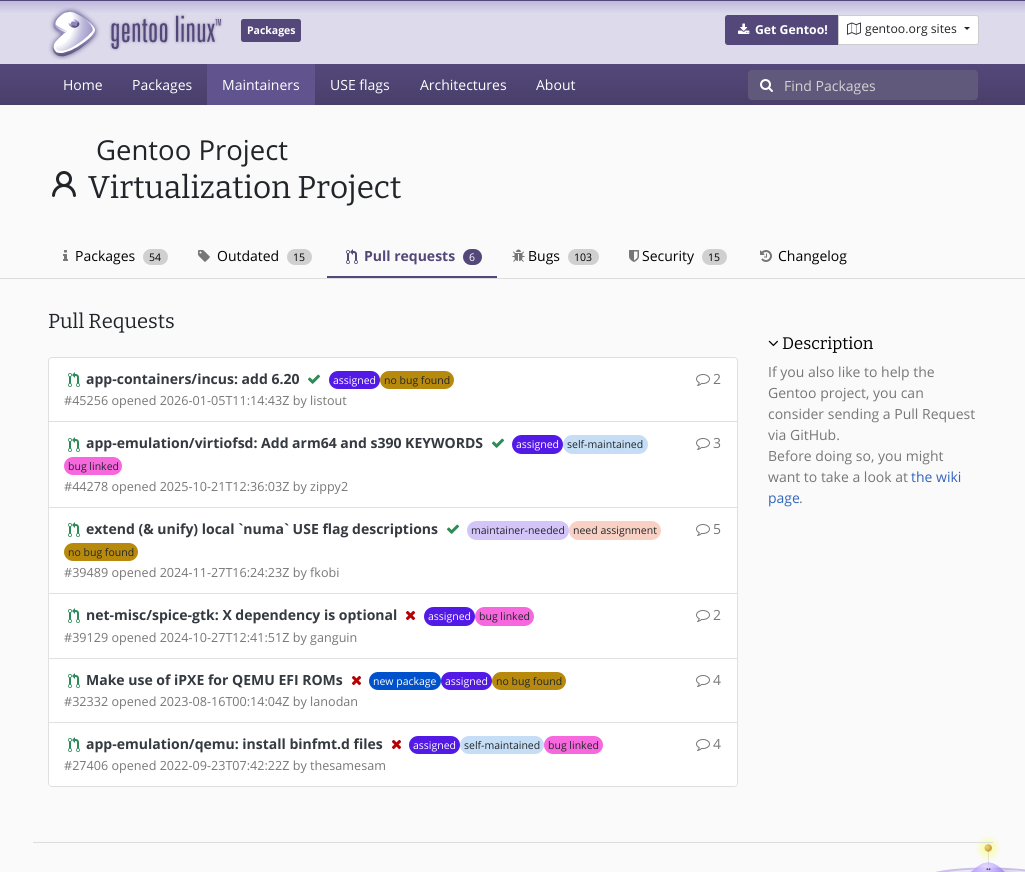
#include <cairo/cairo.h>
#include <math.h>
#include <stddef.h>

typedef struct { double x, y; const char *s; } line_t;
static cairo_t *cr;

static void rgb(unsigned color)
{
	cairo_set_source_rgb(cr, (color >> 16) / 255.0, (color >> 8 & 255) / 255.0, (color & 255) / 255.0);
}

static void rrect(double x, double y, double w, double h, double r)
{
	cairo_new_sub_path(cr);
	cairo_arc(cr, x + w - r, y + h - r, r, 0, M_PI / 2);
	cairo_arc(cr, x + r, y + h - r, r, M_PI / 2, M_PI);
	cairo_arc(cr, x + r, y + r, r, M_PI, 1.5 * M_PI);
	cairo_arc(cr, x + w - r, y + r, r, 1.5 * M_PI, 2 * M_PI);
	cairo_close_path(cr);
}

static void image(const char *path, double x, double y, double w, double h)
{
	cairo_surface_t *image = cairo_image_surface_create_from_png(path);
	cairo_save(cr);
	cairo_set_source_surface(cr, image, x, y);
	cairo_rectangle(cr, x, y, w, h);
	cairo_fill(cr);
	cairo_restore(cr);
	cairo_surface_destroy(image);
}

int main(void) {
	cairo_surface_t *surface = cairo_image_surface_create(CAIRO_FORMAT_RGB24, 1025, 872);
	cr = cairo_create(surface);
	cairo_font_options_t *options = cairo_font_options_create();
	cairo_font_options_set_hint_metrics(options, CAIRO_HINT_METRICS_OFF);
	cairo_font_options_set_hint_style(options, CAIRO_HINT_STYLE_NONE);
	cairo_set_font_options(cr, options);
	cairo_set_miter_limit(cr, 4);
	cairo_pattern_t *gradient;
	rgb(0xfafafa);
	cairo_paint(cr);
	rgb(0x54487a);
	cairo_rectangle(cr, 0, 0, 1025, 1);
	cairo_fill(cr);
	gradient = cairo_pattern_create_linear(513, 1, 513, 64);
	cairo_pattern_add_color_stop_rgba(gradient, 0, 0.745, 0.722, 0.859, 1);
	cairo_pattern_add_color_stop_rgba(gradient, 0.2, 0.867, 0.855, 0.925, 1);
	cairo_set_source(cr, gradient);
	cairo_pattern_destroy(gradient);
	cairo_rectangle(cr, 0, 1, 1025, 63);
	cairo_fill(cr);
	image("img/1.png", 48, 7, 175, 53);
	rgb(0x54487a);
	rrect(241, 19, 60, 23, 2.5);
	cairo_fill(cr);
	cairo_new_path(cr);
	cairo_move_to(cr, 728, 15.5);
	cairo_line_to(cr, 838.5, 15.5);
	cairo_line_to(cr, 838.5, 44.5);
	cairo_line_to(cr, 728, 44.5);
	cairo_curve_to(cr, 726.5, 44.5, 725.5, 43.5, 725.5, 42);
	cairo_line_to(cr, 725.5, 18);
	cairo_curve_to(cr, 725.5, 16.5, 726.5, 15.5, 728, 15.5);
	cairo_close_path(cr);
	cairo_fill_preserve(cr);
	cairo_set_line_width(cr, 1);
	cairo_stroke(cr);
	image("img/2.png", 738, 23, 12, 11);
	rgb(0xffffff);
	cairo_new_path(cr);
	cairo_move_to(cr, 838.5, 15.5);
	cairo_line_to(cr, 976, 15.5);
	cairo_curve_to(cr, 977.5, 15.5, 978.5, 16.5, 978.5, 18);
	cairo_line_to(cr, 978.5, 42);
	cairo_curve_to(cr, 978.5, 43.5, 977.5, 44.5, 976, 44.5);
	cairo_line_to(cr, 838.5, 44.5);
	cairo_close_path(cr);
	cairo_fill_preserve(cr);
	rgb(0xcccccc);
	cairo_stroke(cr);
	image("img/3.png", 847, 22, 14, 13);
	rgb(0x212529);
	cairo_new_path(cr);
	cairo_move_to(cr, 964, 27);
	cairo_line_to(cr, 970, 27);
	cairo_line_to(cr, 967, 30);
	cairo_close_path(cr);
	cairo_fill(cr);
	gradient = cairo_pattern_create_linear(513, 64, 513, 105);
	cairo_pattern_add_color_stop_rgba(gradient, 0, 0.329, 0.282, 0.478, 1);
	cairo_pattern_add_color_stop_rgba(gradient, 1, 0.286, 0.247, 0.416, 1);
	cairo_set_source(cr, gradient);
	cairo_pattern_destroy(gradient);
	cairo_rectangle(cr, 0, 64, 1025, 41);
	cairo_fill(cr);
	rgb(0x61538d);
	cairo_rectangle(cr, 207, 64, 108, 41);
	cairo_fill(cr);
	rgb(0x61597b);
	cairo_new_path(cr);
	cairo_move_to(cr, 752, 70);
	cairo_line_to(cr, 785, 70);
	cairo_line_to(cr, 785, 100);
	cairo_line_to(cr, 752, 100);
	cairo_curve_to(cr, 750, 100, 748, 98, 748, 96);
	cairo_line_to(cr, 748, 74);
	cairo_curve_to(cr, 748, 72, 750, 70, 752, 70);
	cairo_close_path(cr);
	cairo_fill(cr);
	image("img/4.png", 760, 79, 13, 13);
	cairo_new_path(cr);
	cairo_move_to(cr, 784, 70);
	cairo_line_to(cr, 974, 70);
	cairo_curve_to(cr, 976, 70, 978, 72, 978, 74);
	cairo_line_to(cr, 978, 96);
	cairo_curve_to(cr, 978, 98, 976, 100, 974, 100);
	cairo_line_to(cr, 784, 100);
	cairo_close_path(cr);
	cairo_fill(cr);
	image("img/5.png", 52, 171, 24, 26);
	image("img/6.png", 63, 250, 5, 11);
	rgb(0xd0d0d0);
	rrect(143, 249, 25, 16, 8);
	cairo_fill(cr);
	image("img/7.png", 198, 250, 12, 12);
	rrect(287, 249, 25, 16, 8);
	cairo_fill(cr);
	rgb(0x54487a);
	cairo_rectangle(cr, 327, 276, 170, 2);
	cairo_fill(cr);
	image("img/8.png", 346, 249, 12, 15);
	rrect(463, 249, 19, 16, 8);
	cairo_fill(cr);
	image("img/9.png", 512, 249, 13, 13);
	rgb(0xd0d0d0);
	rrect(568, 249, 31, 16, 8);
	cairo_fill(cr);
	image("img/10.png", 629, 250, 10, 12);
	rrect(702, 249, 25, 16, 8);
	cairo_fill(cr);
	image("img/11.png", 760, 250, 12, 12);
	rgb(0xdddddd);
	cairo_rectangle(cr, 0, 278, 1025, 1);
	cairo_fill(cr);
	rgb(0xffffff);
	cairo_new_path(cr);
	cairo_move_to(cr, 52, 357.5);
	cairo_line_to(cr, 734, 357.5);
	cairo_curve_to(cr, 736, 357.5, 737.5, 359, 737.5, 361);
	cairo_line_to(cr, 737.5, 421.5);
	cairo_line_to(cr, 48.5, 421.5);
	cairo_line_to(cr, 48.5, 361);
	cairo_curve_to(cr, 48.5, 359, 50, 357.5, 52, 357.5);
	cairo_close_path(cr);
	cairo_fill_preserve(cr);
	rgb(0xdfdfdf);
	cairo_stroke(cr);
	image("img/12.png", 68, 372, 12, 15);
	image("img/13.png", 308, 374, 12, 10);
	rgb(0x5319e7);
	rrect(329, 371, 51, 18, 9);
	cairo_fill(cr);
	rgb(0xb78a0e);
	rrect(380, 371, 74, 18, 9);
	cairo_fill(cr);
	image("img/14.png", 696, 374, 14, 12);
	rgb(0xffffff);
	cairo_rectangle(cr, 48, 422, 690, 301);
	cairo_fill(cr);
	rgb(0xdfdfdf);
	cairo_new_path(cr);
	cairo_move_to(cr, 738, 422);
	cairo_line_to(cr, 738, 508);
	cairo_line_to(cr, 737, 507);
	cairo_line_to(cr, 737, 422);
	cairo_close_path(cr);
	cairo_fill(cr);
	cairo_set_source_rgba(cr, 0, 0, 0, 0.12);
	cairo_new_path(cr);
	cairo_move_to(cr, 738, 508);
	cairo_line_to(cr, 48, 508);
	cairo_line_to(cr, 49, 507);
	cairo_line_to(cr, 737, 507);
	cairo_close_path(cr);
	cairo_fill(cr);
	cairo_new_path(cr);
	cairo_move_to(cr, 48, 508);
	cairo_line_to(cr, 48, 422);
	cairo_line_to(cr, 49, 422);
	cairo_line_to(cr, 49, 507);
	cairo_close_path(cr);
	cairo_fill(cr);
	image("img/12.png", 68, 437, 12, 15);
	image("img/13.png", 492, 438, 12, 10);
	rgb(0x5319e7);
	rrect(512, 435, 51, 19, 9.5);
	cairo_fill(cr);
	rgb(0xc5def5);
	rrect(563, 435, 85, 19, 9.5);
	cairo_fill(cr);
	rgb(0xf767dd);
	rrect(64, 457, 58, 18, 9);
	cairo_fill(cr);
	image("img/14.png", 696, 438, 14, 12);
	rgb(0xdfdfdf);
	cairo_new_path(cr);
	cairo_move_to(cr, 738, 508);
	cairo_line_to(cr, 738, 594);
	cairo_line_to(cr, 737, 593);
	cairo_line_to(cr, 737, 508);
	cairo_close_path(cr);
	cairo_fill(cr);
	cairo_set_source_rgba(cr, 0, 0, 0, 0.12);
	cairo_new_path(cr);
	cairo_move_to(cr, 738, 594);
	cairo_line_to(cr, 48, 594);
	cairo_line_to(cr, 49, 593);
	cairo_line_to(cr, 737, 593);
	cairo_close_path(cr);
	cairo_fill(cr);
	cairo_new_path(cr);
	cairo_move_to(cr, 48, 594);
	cairo_line_to(cr, 48, 508);
	cairo_line_to(cr, 49, 508);
	cairo_line_to(cr, 49, 593);
	cairo_close_path(cr);
	cairo_fill(cr);
	image("img/12.png", 68, 522, 12, 15);
	image("img/13.png", 447, 524, 12, 10);
	rgb(0xd4c5f9);
	rrect(467, 521, 102, 19, 9.5);
	cairo_fill(cr);
	rgb(0xf9d0c4);
	rrect(569, 521, 92, 19, 9.5);
	cairo_fill(cr);
	rgb(0xb78a0e);
	rrect(64, 543, 74, 18, 9);
	cairo_fill(cr);
	image("img/14.png", 696, 524, 14, 12);
	rgb(0xdfdfdf);
	cairo_new_path(cr);
	cairo_move_to(cr, 738, 594);
	cairo_line_to(cr, 738, 659);
	cairo_line_to(cr, 737, 658);
	cairo_line_to(cr, 737, 594);
	cairo_close_path(cr);
	cairo_fill(cr);
	cairo_set_source_rgba(cr, 0, 0, 0, 0.12);
	cairo_new_path(cr);
	cairo_move_to(cr, 738, 659);
	cairo_line_to(cr, 48, 659);
	cairo_line_to(cr, 49, 658);
	cairo_line_to(cr, 737, 658);
	cairo_close_path(cr);
	cairo_fill(cr);
	cairo_new_path(cr);
	cairo_move_to(cr, 48, 659);
	cairo_line_to(cr, 48, 594);
	cairo_line_to(cr, 49, 594);
	cairo_line_to(cr, 49, 658);
	cairo_close_path(cr);
	cairo_fill(cr);
	image("img/12.png", 68, 608, 12, 15);
	image("img/15.png", 405, 610, 11, 11);
	rgb(0x5319e7);
	rrect(424, 607, 51, 19, 9.5);
	cairo_fill(cr);
	rgb(0xf767dd);
	rrect(475, 607, 59, 19, 9.5);
	cairo_fill(cr);
	image("img/14.png", 696, 610, 14, 12);
	rgb(0xdfdfdf);
	cairo_new_path(cr);
	cairo_move_to(cr, 738, 659);
	cairo_line_to(cr, 738, 723);
	cairo_line_to(cr, 737, 722);
	cairo_line_to(cr, 737, 659);
	cairo_close_path(cr);
	cairo_fill(cr);
	cairo_set_source_rgba(cr, 0, 0, 0, 0.12);
	cairo_new_path(cr);
	cairo_move_to(cr, 738, 723);
	cairo_line_to(cr, 48, 723);
	cairo_line_to(cr, 49, 722);
	cairo_line_to(cr, 737, 722);
	cairo_close_path(cr);
	cairo_fill(cr);
	cairo_new_path(cr);
	cairo_move_to(cr, 48, 723);
	cairo_line_to(cr, 48, 659);
	cairo_line_to(cr, 49, 659);
	cairo_line_to(cr, 49, 722);
	cairo_close_path(cr);
	cairo_fill(cr);
	image("img/12.png", 68, 673, 12, 15);
	image("img/15.png", 351, 675, 11, 11);
	rgb(0x0052cc);
	rrect(369, 672, 72, 18, 9);
	cairo_fill(cr);
	rgb(0x5319e7);
	rrect(441, 672, 51, 18, 9);
	cairo_fill(cr);
	rgb(0xb78a0e);
	rrect(492, 672, 74, 18, 9);
	cairo_fill(cr);
	image("img/14.png", 696, 675, 14, 12);
	rgb(0xffffff);
	cairo_new_path(cr);
	cairo_move_to(cr, 48, 723);
	cairo_line_to(cr, 738, 723);
	cairo_line_to(cr, 738, 783);
	cairo_curve_to(cr, 738, 785, 736, 787, 734, 787);
	cairo_line_to(cr, 52, 787);
	cairo_curve_to(cr, 50, 787, 48, 785, 48, 783);
	cairo_close_path(cr);
	cairo_fill(cr);
	rgb(0xdfdfdf);
	cairo_set_fill_rule(cr, CAIRO_FILL_RULE_EVEN_ODD);
	cairo_new_path(cr);
	cairo_move_to(cr, 48, 723);
	cairo_line_to(cr, 738, 723);
	cairo_line_to(cr, 738, 783);
	cairo_curve_to(cr, 738, 785, 736, 787, 734, 787);
	cairo_line_to(cr, 52, 787);
	cairo_curve_to(cr, 50, 787, 48, 785, 48, 783);
	cairo_close_path(cr);
	cairo_move_to(cr, 49, 723);
	cairo_line_to(cr, 737, 723);
	cairo_line_to(cr, 737, 783);
	cairo_curve_to(cr, 737, 785, 736, 786, 734, 786);
	cairo_line_to(cr, 52, 786);
	cairo_curve_to(cr, 50, 786, 49, 785, 49, 783);
	cairo_close_path(cr);
	cairo_fill(cr);
	image("img/12.png", 68, 737, 12, 15);
	image("img/15.png", 391, 739, 11, 11);
	rgb(0x5319e7);
	rrect(409, 736, 51, 18, 9);
	cairo_fill(cr);
	rgb(0xc5def5);
	rrect(460, 736, 84, 18, 9);
	cairo_fill(cr);
	rgb(0xf767dd);
	rrect(544, 736, 59, 18, 9);
	cairo_fill(cr);
	image("img/14.png", 696, 739, 14, 12);
	image("img/16.png", 768, 340, 10, 7);
	image("img/17.png", 935, 836, 90, 36);
	rgb(0xdddddd);
	cairo_rectangle(cr, 33, 842, 960, 1);
	cairo_fill(cr);
	cairo_select_font_face(cr, "Open Sans", CAIRO_FONT_SLANT_NORMAL, CAIRO_FONT_WEIGHT_BOLD);
	cairo_set_font_size(cr, 10.5);
	rgb(0xffffff);
	cairo_move_to(cr, 247, 34);
	cairo_show_text(cr, "Packages");
	cairo_set_font_size(cr, 12.25);
	cairo_move_to(cr, 755, 34);
	cairo_show_text(cr, "Get Gentoo!");
	cairo_select_font_face(cr, "Open Sans", CAIRO_FONT_SLANT_NORMAL, CAIRO_FONT_WEIGHT_NORMAL);
	rgb(0x212529);
	cairo_move_to(cr, 865, 33);
	cairo_show_text(cr, "gentoo.org sites");
	cairo_set_font_size(cr, 14);
	rgb(0xffffff);
	{
		static const line_t items[] = {
			{63, 90, "Home"},
			{132, 90, "Packages"},
			{222, 90, "Maintainers"},
			{330, 90, "USE flags"},
			{420, 90, "Architectures"},
			{536, 90, "About"},
		};
		for (size_t i = 0; i < sizeof items / sizeof *items; i++) {
			cairo_move_to(cr, items[i].x, items[i].y);
			cairo_show_text(cr, items[i].s);
		}
	}
	rgb(0xd3d3d3);
	cairo_move_to(cr, 784, 91);
	cairo_show_text(cr, "Find Packages");
	cairo_set_font_size(cr, 27.5);
	rgb(0x212529);
	cairo_move_to(cr, 96, 160);
	cairo_show_text(cr, "Gentoo Project");
	cairo_select_font_face(cr, "Bitter", CAIRO_FONT_SLANT_NORMAL, CAIRO_FONT_WEIGHT_NORMAL);
	cairo_set_font_size(cr, 31.5);
	cairo_move_to(cr, 88, 198);
	cairo_show_text(cr, "Virtualization Project");
	cairo_select_font_face(cr, "Open Sans", CAIRO_FONT_SLANT_NORMAL, CAIRO_FONT_WEIGHT_NORMAL);
	cairo_set_font_size(cr, 14);
	rgb(0x000000);
	cairo_move_to(cr, 75, 261);
	cairo_show_text(cr, "Packages");
	cairo_set_font_size(cr, 10.5);
	cairo_move_to(cr, 149, 261);
	cairo_show_text(cr, "54");
	cairo_set_font_size(cr, 14);
	cairo_move_to(cr, 217, 261);
	cairo_show_text(cr, "Outdated");
	cairo_set_font_size(cr, 10.5);
	cairo_move_to(cr, 293, 261);
	cairo_show_text(cr, "15");
	cairo_select_font_face(cr, "Open Sans", CAIRO_FONT_SLANT_NORMAL, CAIRO_FONT_WEIGHT_BOLD);
	cairo_set_font_size(cr, 14);
	rgb(0x54487a);
	cairo_move_to(cr, 364, 261);
	cairo_show_text(cr, "Pull requests");
	cairo_select_font_face(cr, "Open Sans", CAIRO_FONT_SLANT_NORMAL, CAIRO_FONT_WEIGHT_NORMAL);
	cairo_set_font_size(cr, 10.5);
	rgb(0xffffff);
	cairo_move_to(cr, 469, 261);
	cairo_show_text(cr, "6");
	cairo_set_font_size(cr, 14);
	rgb(0x000000);
	cairo_move_to(cr, 528, 261);
	cairo_show_text(cr, "Bugs");
	cairo_set_font_size(cr, 10.5);
	cairo_move_to(cr, 574, 261);
	cairo_show_text(cr, "103");
	cairo_set_font_size(cr, 14);
	cairo_move_to(cr, 642, 261);
	cairo_show_text(cr, "Security");
	cairo_set_font_size(cr, 10.5);
	cairo_move_to(cr, 708, 261);
	cairo_show_text(cr, "15");
	cairo_set_font_size(cr, 14);
	cairo_move_to(cr, 778, 261);
	cairo_show_text(cr, "Changelog");
	cairo_select_font_face(cr, "Bitter", CAIRO_FONT_SLANT_NORMAL, CAIRO_FONT_WEIGHT_NORMAL);
	cairo_set_font_size(cr, 20.25);
	rgb(0x212529);
	cairo_move_to(cr, 48, 328);
	cairo_show_text(cr, "Pull Requests");
	cairo_select_font_face(cr, "Open Sans", CAIRO_FONT_SLANT_NORMAL, CAIRO_FONT_WEIGHT_BOLD);
	cairo_set_font_size(cr, 14);
	rgb(0x343a40);
	cairo_move_to(cr, 86, 384);
	cairo_show_text(cr, "app-containers/incus: add 6.20");
	cairo_select_font_face(cr, "Open Sans", CAIRO_FONT_SLANT_NORMAL, CAIRO_FONT_WEIGHT_NORMAL);
	cairo_set_font_size(cr, 10.5);
	rgb(0xffffff);
	cairo_move_to(cr, 333, 384);
	cairo_show_text(cr, "assigned");
	rgb(0x212529);
	cairo_move_to(cr, 384, 384);
	cairo_show_text(cr, "no bug found");
	cairo_set_font_size(cr, 14);
	rgb(0x777777);
	cairo_move_to(cr, 713, 384);
	cairo_show_text(cr, "2");
	cairo_set_font_size(cr, 12.6);
	cairo_move_to(cr, 64, 405);
	cairo_show_text(cr, "#45256 opened 2026-01-05T11:14:43Z by listout");
	cairo_select_font_face(cr, "Open Sans", CAIRO_FONT_SLANT_NORMAL, CAIRO_FONT_WEIGHT_BOLD);
	cairo_set_font_size(cr, 14);
	rgb(0x343a40);
	cairo_move_to(cr, 86, 448);
	cairo_show_text(cr, "app-emulation/virtiofsd: Add arm64 and s390 KEYWORDS");
	cairo_select_font_face(cr, "Open Sans", CAIRO_FONT_SLANT_NORMAL, CAIRO_FONT_WEIGHT_NORMAL);
	cairo_set_font_size(cr, 10.5);
	rgb(0xffffff);
	cairo_move_to(cr, 516, 448);
	cairo_show_text(cr, "assigned");
	rgb(0x212529);
	cairo_move_to(cr, 567, 448);
	cairo_show_text(cr, "self-maintained");
	cairo_move_to(cr, 68, 470);
	cairo_show_text(cr, "bug linked");
	cairo_set_font_size(cr, 14);
	rgb(0x777777);
	cairo_move_to(cr, 713, 448);
	cairo_show_text(cr, "3");
	cairo_set_font_size(cr, 12.6);
	cairo_move_to(cr, 64, 491);
	cairo_show_text(cr, "#44278 opened 2025-10-21T12:36:03Z by zippy2");
	cairo_select_font_face(cr, "Open Sans", CAIRO_FONT_SLANT_NORMAL, CAIRO_FONT_WEIGHT_BOLD);
	cairo_set_font_size(cr, 14);
	rgb(0x343a40);
	cairo_move_to(cr, 86, 534);
	cairo_show_text(cr, "extend (& unify) local `numa` USE flag descriptions");
	cairo_select_font_face(cr, "Open Sans", CAIRO_FONT_SLANT_NORMAL, CAIRO_FONT_WEIGHT_NORMAL);
	cairo_set_font_size(cr, 10.5);
	rgb(0x212529);
	{
		static const line_t items[] = {
			{471, 534, "maintainer-needed"},
			{573, 534, "need assignment"},
			{68, 556, "no bug found"},
		};
		for (size_t i = 0; i < sizeof items / sizeof *items; i++) {
			cairo_move_to(cr, items[i].x, items[i].y);
			cairo_show_text(cr, items[i].s);
		}
	}
	cairo_set_font_size(cr, 14);
	rgb(0x777777);
	cairo_move_to(cr, 713, 534);
	cairo_show_text(cr, "5");
	cairo_set_font_size(cr, 12.6);
	cairo_move_to(cr, 64, 577);
	cairo_show_text(cr, "#39489 opened 2024-11-27T16:24:23Z by fkobi");
	cairo_select_font_face(cr, "Open Sans", CAIRO_FONT_SLANT_NORMAL, CAIRO_FONT_WEIGHT_BOLD);
	cairo_set_font_size(cr, 14);
	rgb(0x343a40);
	cairo_move_to(cr, 86, 620);
	cairo_show_text(cr, "net-misc/spice-gtk: X dependency is optional");
	cairo_select_font_face(cr, "Open Sans", CAIRO_FONT_SLANT_NORMAL, CAIRO_FONT_WEIGHT_NORMAL);
	cairo_set_font_size(cr, 10.5);
	rgb(0xffffff);
	cairo_move_to(cr, 428, 620);
	cairo_show_text(cr, "assigned");
	rgb(0x212529);
	cairo_move_to(cr, 479, 620);
	cairo_show_text(cr, "bug linked");
	cairo_set_font_size(cr, 14);
	rgb(0x777777);
	cairo_move_to(cr, 713, 620);
	cairo_show_text(cr, "2");
	cairo_set_font_size(cr, 12.6);
	cairo_move_to(cr, 64, 642);
	cairo_show_text(cr, "#39129 opened 2024-10-27T12:41:51Z by ganguin");
	cairo_select_font_face(cr, "Open Sans", CAIRO_FONT_SLANT_NORMAL, CAIRO_FONT_WEIGHT_BOLD);
	cairo_set_font_size(cr, 14);
	rgb(0x343a40);
	cairo_move_to(cr, 86, 685);
	cairo_show_text(cr, "Make use of iPXE for QEMU EFI ROMs");
	cairo_select_font_face(cr, "Open Sans", CAIRO_FONT_SLANT_NORMAL, CAIRO_FONT_WEIGHT_NORMAL);
	cairo_set_font_size(cr, 10.5);
	rgb(0xffffff);
	cairo_move_to(cr, 373, 685);
	cairo_show_text(cr, "new package");
	cairo_move_to(cr, 445, 685);
	cairo_show_text(cr, "assigned");
	rgb(0x212529);
	cairo_move_to(cr, 496, 685);
	cairo_show_text(cr, "no bug found");
	cairo_set_font_size(cr, 14);
	rgb(0x777777);
	cairo_move_to(cr, 713, 685);
	cairo_show_text(cr, "4");
	cairo_set_font_size(cr, 12.6);
	cairo_move_to(cr, 64, 706);
	cairo_show_text(cr, "#32332 opened 2023-08-16T00:14:04Z by lanodan");
	cairo_select_font_face(cr, "Open Sans", CAIRO_FONT_SLANT_NORMAL, CAIRO_FONT_WEIGHT_BOLD);
	cairo_set_font_size(cr, 14);
	rgb(0x343a40);
	cairo_move_to(cr, 86, 749);
	cairo_show_text(cr, "app-emulation/qemu: install binfmt.d files");
	cairo_select_font_face(cr, "Open Sans", CAIRO_FONT_SLANT_NORMAL, CAIRO_FONT_WEIGHT_NORMAL);
	cairo_set_font_size(cr, 10.5);
	rgb(0xffffff);
	cairo_move_to(cr, 413, 749);
	cairo_show_text(cr, "assigned");
	rgb(0x212529);
	cairo_move_to(cr, 464, 749);
	cairo_show_text(cr, "self-maintained");
	cairo_move_to(cr, 548, 749);
	cairo_show_text(cr, "bug linked");
	cairo_set_font_size(cr, 14);
	rgb(0x777777);
	cairo_move_to(cr, 713, 749);
	cairo_show_text(cr, "4");
	cairo_set_font_size(cr, 12.6);
	cairo_move_to(cr, 64, 770);
	cairo_show_text(cr, "#27406 opened 2022-09-23T07:42:22Z by thesamesam");
	cairo_select_font_face(cr, "Bitter", CAIRO_FONT_SLANT_NORMAL, CAIRO_FONT_WEIGHT_NORMAL);
	cairo_set_font_size(cr, 16.75);
	rgb(0x000000);
	cairo_move_to(cr, 782, 349);
	cairo_show_text(cr, "Description");
	cairo_select_font_face(cr, "Open Sans", CAIRO_FONT_SLANT_NORMAL, CAIRO_FONT_WEIGHT_NORMAL);
	cairo_set_font_size(cr, 14);
	rgb(0x777777);
	{
		static const line_t items[] = {
			{768, 377, "If you also like to help the"},
			{768, 398, "Gentoo project, you can"},
			{768, 419, "consider sending a Pull Request"},
			{768, 440, "via GitHub."},
			{768, 461, "Before doing so, you might"},
			{768, 482, "want to take a look at"},
		};
		for (size_t i = 0; i < sizeof items / sizeof *items; i++) {
			cairo_move_to(cr, items[i].x, items[i].y);
			cairo_show_text(cr, items[i].s);
		}
	}
	rgb(0x3366bb);
	cairo_move_to(cr, 911, 482);
	cairo_show_text(cr, "the wiki");
	cairo_move_to(cr, 768, 503);
	cairo_show_text(cr, "page");
	rgb(0x777777);
	cairo_move_to(cr, 799, 503);
	cairo_show_text(cr, ".");
	cairo_surface_write_to_png(surface, "page.png");
	cairo_font_options_destroy(options);
	cairo_destroy(cr);
	cairo_surface_destroy(surface);
	return 0;
}
